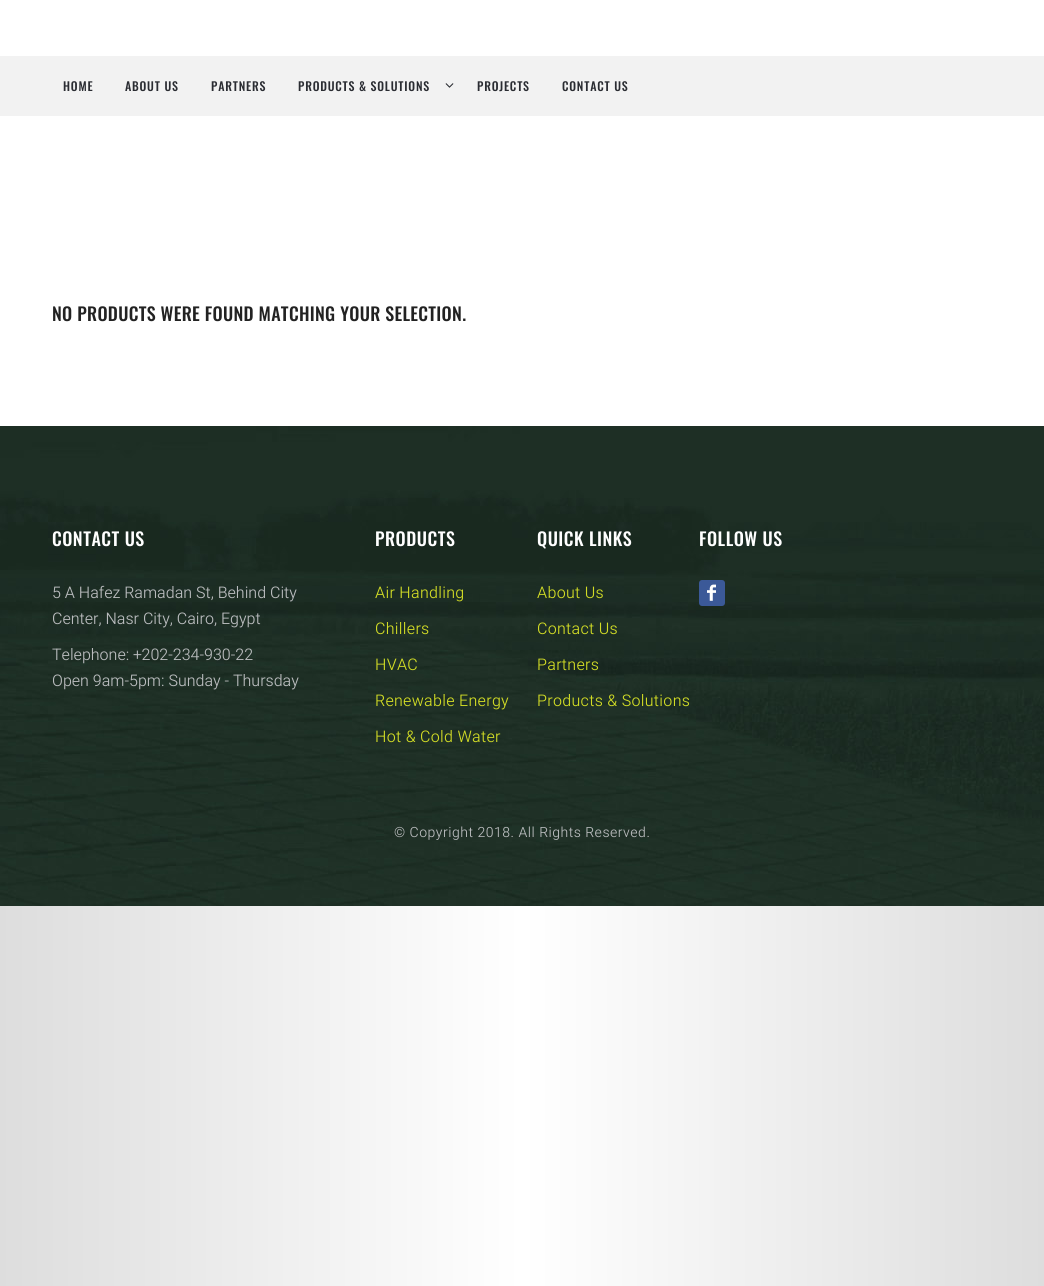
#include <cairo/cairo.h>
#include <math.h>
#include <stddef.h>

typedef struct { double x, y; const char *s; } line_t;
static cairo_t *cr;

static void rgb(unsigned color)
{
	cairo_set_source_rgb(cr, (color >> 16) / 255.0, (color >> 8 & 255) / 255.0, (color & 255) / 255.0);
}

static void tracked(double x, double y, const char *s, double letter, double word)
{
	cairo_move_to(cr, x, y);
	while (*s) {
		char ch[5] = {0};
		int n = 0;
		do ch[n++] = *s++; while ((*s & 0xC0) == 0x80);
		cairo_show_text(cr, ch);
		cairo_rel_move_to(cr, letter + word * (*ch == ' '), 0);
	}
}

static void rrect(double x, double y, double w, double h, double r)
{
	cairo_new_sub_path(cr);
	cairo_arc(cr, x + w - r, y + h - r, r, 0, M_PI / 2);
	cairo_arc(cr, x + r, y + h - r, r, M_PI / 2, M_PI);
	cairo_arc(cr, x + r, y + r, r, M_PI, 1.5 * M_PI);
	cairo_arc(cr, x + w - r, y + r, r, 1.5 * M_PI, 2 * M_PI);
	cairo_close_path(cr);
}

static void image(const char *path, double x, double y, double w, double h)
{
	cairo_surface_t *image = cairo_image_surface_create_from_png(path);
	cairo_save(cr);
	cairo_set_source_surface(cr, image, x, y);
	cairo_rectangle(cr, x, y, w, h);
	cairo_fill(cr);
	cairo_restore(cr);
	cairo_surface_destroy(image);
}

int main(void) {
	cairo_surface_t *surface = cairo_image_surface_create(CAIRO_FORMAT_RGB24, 1044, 1286);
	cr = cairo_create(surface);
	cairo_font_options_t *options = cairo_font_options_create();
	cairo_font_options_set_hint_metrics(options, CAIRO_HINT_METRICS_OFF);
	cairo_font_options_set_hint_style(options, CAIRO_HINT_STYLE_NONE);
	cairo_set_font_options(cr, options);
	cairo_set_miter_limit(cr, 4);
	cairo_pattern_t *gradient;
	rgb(0xffffff);
	cairo_paint(cr);
	gradient = cairo_pattern_create_linear(0, 643, 1044, 643);
	cairo_pattern_add_color_stop_rgba(gradient, 0, 0.867, 0.867, 0.867, 1);
	cairo_pattern_add_color_stop_rgba(gradient, 0.5, 1, 1, 1, 1);
	cairo_pattern_add_color_stop_rgba(gradient, 1, 0.867, 0.867, 0.867, 1);
	cairo_set_source(cr, gradient);
	cairo_pattern_destroy(gradient);
	cairo_rectangle(cr, 0, 906, 1044, 380);
	cairo_fill(cr);
	rgb(0xf2f2f2);
	cairo_rectangle(cr, 0, 56, 1044, 60);
	cairo_fill(cr);
	image("img/1.png", 445, 83, 9, 5);
	image("img/2.png", 0, 426, 1044, 480);
	rgb(0x3b5998);
	rrect(699, 580, 26, 26, 3);
	cairo_fill(cr);
	image("img/3.png", 707, 584, 9, 17);
	cairo_select_font_face(cr, "Oswald Medium", CAIRO_FONT_SLANT_NORMAL, CAIRO_FONT_WEIGHT_NORMAL);
	cairo_set_font_size(cr, 12);
	rgb(0x2a2c32);
	{
		static const line_t items[] = {
			{63, 91, "HOME"},
			{125, 91, "ABOUT US"},
			{211, 91, "PARTNERS"},
			{298, 91, "PRODUCTS & SOLUTIONS"},
			{477, 91, "PROJECTS"},
			{562, 91, "CONTACT US"},
		};
		for (size_t i = 0; i < sizeof items / sizeof *items; i++) {
			tracked(items[i].x, items[i].y, items[i].s, 0.8, 0);
		}
	}
	cairo_set_font_size(cr, 18);
	rgb(0x222222);
	tracked(52, 321, "NO PRODUCTS WERE FOUND MATCHING YOUR SELECTION.", 0.3, 0);
	rgb(0xffffff);
	tracked(52, 546, "CONTACT US", 0.5, 0);
	cairo_select_font_face(cr, "Heebo Light", CAIRO_FONT_SLANT_NORMAL, CAIRO_FONT_WEIGHT_NORMAL);
	cairo_set_font_size(cr, 16);
	rgb(0xbabcbe);
	{
		static const line_t items[] = {
			{52, 598, "5 A Hafez Ramadan St, Behind City"},
			{52, 624, "Center, Nasr City, Cairo, Egypt"},
			{52, 660, "Telephone: +202-234-930-22"},
			{52, 686, "Open 9am-5pm: Sunday - Thursday"},
		};
		for (size_t i = 0; i < sizeof items / sizeof *items; i++) {
			cairo_move_to(cr, items[i].x, items[i].y);
			cairo_show_text(cr, items[i].s);
		}
	}
	cairo_select_font_face(cr, "Oswald Medium", CAIRO_FONT_SLANT_NORMAL, CAIRO_FONT_WEIGHT_NORMAL);
	cairo_set_font_size(cr, 18);
	rgb(0xffffff);
	tracked(375, 546, "PRODUCTS", 0.5, 0);
	cairo_select_font_face(cr, "Heebo Light", CAIRO_FONT_SLANT_NORMAL, CAIRO_FONT_WEIGHT_NORMAL);
	cairo_set_font_size(cr, 16);
	rgb(0xd2dc25);
	{
		static const line_t items[] = {
			{375, 598, "Air Handling"},
			{375, 634, "Chillers"},
			{375, 670, "HVAC"},
			{375, 706, "Renewable Energy"},
			{375, 742, "Hot & Cold Water"},
		};
		for (size_t i = 0; i < sizeof items / sizeof *items; i++) {
			tracked(items[i].x, items[i].y, items[i].s, 0.3, 0);
		}
	}
	cairo_select_font_face(cr, "Oswald Medium", CAIRO_FONT_SLANT_NORMAL, CAIRO_FONT_WEIGHT_NORMAL);
	cairo_set_font_size(cr, 18);
	rgb(0xffffff);
	tracked(537, 546, "QUICK LINKS", 0.5, 0);
	cairo_select_font_face(cr, "Heebo Light", CAIRO_FONT_SLANT_NORMAL, CAIRO_FONT_WEIGHT_NORMAL);
	cairo_set_font_size(cr, 16);
	rgb(0xd2dc25);
	{
		static const line_t items[] = {
			{537, 598, "About Us"},
			{537, 634, "Contact Us"},
			{537, 670, "Partners"},
			{537, 706, "Products & Solutions"},
		};
		for (size_t i = 0; i < sizeof items / sizeof *items; i++) {
			tracked(items[i].x, items[i].y, items[i].s, 0.3, 0);
		}
	}
	cairo_select_font_face(cr, "Oswald Medium", CAIRO_FONT_SLANT_NORMAL, CAIRO_FONT_WEIGHT_NORMAL);
	cairo_set_font_size(cr, 18);
	rgb(0xffffff);
	tracked(699, 546, "FOLLOW US", 0.5, 0);
	cairo_select_font_face(cr, "Heebo Light", CAIRO_FONT_SLANT_NORMAL, CAIRO_FONT_WEIGHT_NORMAL);
	cairo_set_font_size(cr, 14);
	rgb(0xbabcbe);
	tracked(394, 837, "© Copyright 2018. All Rights Reserved.", 0.5, 0);
	cairo_surface_write_to_png(surface, "page.png");
	cairo_font_options_destroy(options);
	cairo_destroy(cr);
	cairo_surface_destroy(surface);
	return 0;
}
